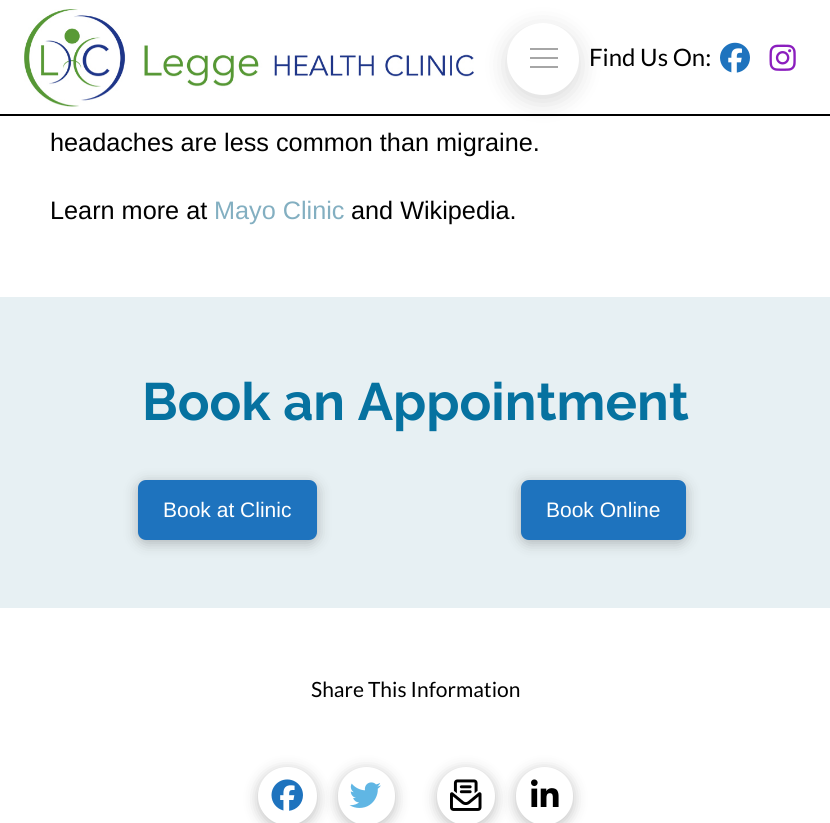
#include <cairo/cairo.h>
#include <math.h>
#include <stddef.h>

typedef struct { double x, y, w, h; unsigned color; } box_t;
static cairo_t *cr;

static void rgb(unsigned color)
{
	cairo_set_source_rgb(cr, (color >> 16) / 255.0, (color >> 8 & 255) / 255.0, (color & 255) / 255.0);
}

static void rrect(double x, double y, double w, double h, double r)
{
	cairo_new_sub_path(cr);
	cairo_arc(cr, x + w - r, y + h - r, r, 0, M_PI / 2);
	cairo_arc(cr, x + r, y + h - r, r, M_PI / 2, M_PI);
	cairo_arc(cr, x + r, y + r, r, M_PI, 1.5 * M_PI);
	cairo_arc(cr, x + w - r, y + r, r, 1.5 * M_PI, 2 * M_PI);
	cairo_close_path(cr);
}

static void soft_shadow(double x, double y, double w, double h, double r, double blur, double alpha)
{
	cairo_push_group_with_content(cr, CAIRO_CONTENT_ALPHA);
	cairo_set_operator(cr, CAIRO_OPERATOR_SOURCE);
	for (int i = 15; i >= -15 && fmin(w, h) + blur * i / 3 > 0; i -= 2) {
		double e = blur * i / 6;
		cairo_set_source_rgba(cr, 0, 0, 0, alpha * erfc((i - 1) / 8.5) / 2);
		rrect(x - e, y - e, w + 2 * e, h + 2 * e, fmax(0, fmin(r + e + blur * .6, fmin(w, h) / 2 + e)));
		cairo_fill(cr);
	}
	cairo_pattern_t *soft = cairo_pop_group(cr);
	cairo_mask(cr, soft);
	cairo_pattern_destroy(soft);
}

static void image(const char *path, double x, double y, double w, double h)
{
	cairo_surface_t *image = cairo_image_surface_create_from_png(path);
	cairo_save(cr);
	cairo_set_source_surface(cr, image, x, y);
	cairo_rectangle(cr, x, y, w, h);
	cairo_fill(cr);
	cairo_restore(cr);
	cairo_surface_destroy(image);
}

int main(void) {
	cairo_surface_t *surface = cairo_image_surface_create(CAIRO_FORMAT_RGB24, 830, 823);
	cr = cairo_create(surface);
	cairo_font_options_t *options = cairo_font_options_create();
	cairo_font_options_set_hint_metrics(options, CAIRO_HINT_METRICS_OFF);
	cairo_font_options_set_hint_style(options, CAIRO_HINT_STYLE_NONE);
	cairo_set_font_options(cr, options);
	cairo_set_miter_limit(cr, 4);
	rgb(0xffffff);
	cairo_paint(cr);
	rgb(0x000000);
	cairo_rectangle(cr, 0, 114, 830, 2);
	cairo_fill(cr);
	image("img/1.png", 24, 9, 450, 98);
	rgb(0x000000);
	soft_shadow(507, 29, 72, 72, 36, 12, 0.15);
	rgb(0xffffff);
	cairo_arc(cr, 543, 59, 36, 0, 2 * M_PI);
	cairo_fill(cr);
	{
		static const box_t items[] = {
			{530, 48, 28, 2, 0xa6a6a6},
			{530, 57, 28, 2, 0xa6a6a6},
			{530, 66, 28, 2, 0xa6a6a6},
		};
		for (size_t i = 0; i < sizeof items / sizeof *items; i++) {
			rgb(items[i].color);
			cairo_rectangle(cr, items[i].x, items[i].y, items[i].w, items[i].h);
			cairo_fill(cr);
		}
	}
	image("img/2.png", 720, 42, 30, 31);
	image("img/3.png", 769, 44, 27, 27);
	rgb(0xe7f0f3);
	cairo_rectangle(cr, 0, 297, 830, 311);
	cairo_fill(cr);
	rgb(0x000000);
	soft_shadow(138, 483, 179, 60, 8, 7, 0.25);
	rgb(0x1e73be);
	rrect(138, 480, 179, 60, 8);
	cairo_fill(cr);
	rgb(0x000000);
	soft_shadow(521, 483, 165, 60, 8, 7, 0.25);
	rgb(0x1e73be);
	rrect(521, 480, 165, 60, 8);
	cairo_fill(cr);
	rgb(0x000000);
	soft_shadow(258, 770, 59, 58, 29, 7, 0.25);
	rgb(0xffffff);
	rrect(258, 767, 59, 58, 29);
	cairo_fill(cr);
	image("img/4.png", 271, 779, 32, 32);
	rgb(0x000000);
	soft_shadow(338, 770, 57, 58, 28.5, 7, 0.25);
	rgb(0xffffff);
	rrect(338, 767, 57, 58, 28.5);
	cairo_fill(cr);
	image("img/5.png", 349, 782, 32, 26);
	rgb(0x000000);
	soft_shadow(437, 770, 58, 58, 29, 7, 0.25);
	rgb(0xffffff);
	cairo_arc(cr, 466, 796, 29, 0, 2 * M_PI);
	cairo_fill(cr);
	image("img/6.png", 450, 779, 32, 32);
	rgb(0x000000);
	soft_shadow(516, 770, 57, 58, 28.5, 7, 0.25);
	rgb(0xffffff);
	rrect(516, 767, 57, 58, 28.5);
	cairo_fill(cr);
	image("img/7.png", 531, 779, 28, 28);
	cairo_select_font_face(cr, "Lato", CAIRO_FONT_SLANT_NORMAL, CAIRO_FONT_WEIGHT_NORMAL);
	cairo_set_font_size(cr, 24);
	rgb(0x000000);
	cairo_move_to(cr, 589, 66);
	cairo_show_text(cr, "Find Us On:");
	cairo_select_font_face(cr, "Liberation Sans", CAIRO_FONT_SLANT_NORMAL, CAIRO_FONT_WEIGHT_NORMAL);
	cairo_set_font_size(cr, 25.25);
	cairo_move_to(cr, 50, 151);
	cairo_show_text(cr, "headaches are less common than migraine.");
	cairo_move_to(cr, 50, 219);
	cairo_show_text(cr, "Learn more at");
	rgb(0x83afc1);
	cairo_move_to(cr, 214, 219);
	cairo_show_text(cr, "Mayo Clinic");
	rgb(0x000000);
	cairo_move_to(cr, 351, 219);
	cairo_show_text(cr, "and Wikipedia.");
	cairo_select_font_face(cr, "Raleway Thin", CAIRO_FONT_SLANT_NORMAL, CAIRO_FONT_WEIGHT_NORMAL);
	cairo_set_font_size(cr, 52.5);
	rgb(0x0672a0);
	cairo_move_to(cr, 142, 420);
	cairo_show_text(cr, "Book an Appointment");
	cairo_select_font_face(cr, "Liberation Sans", CAIRO_FONT_SLANT_NORMAL, CAIRO_FONT_WEIGHT_NORMAL);
	cairo_set_font_size(cr, 21);
	rgb(0xffffff);
	cairo_move_to(cr, 163, 517);
	cairo_show_text(cr, "Book at Clinic");
	cairo_move_to(cr, 546, 517);
	cairo_show_text(cr, "Book Online");
	cairo_select_font_face(cr, "Lato", CAIRO_FONT_SLANT_NORMAL, CAIRO_FONT_WEIGHT_NORMAL);
	rgb(0x000000);
	cairo_move_to(cr, 311, 697);
	cairo_show_text(cr, "Share This Information");
	cairo_surface_write_to_png(surface, "page.png");
	cairo_font_options_destroy(options);
	cairo_destroy(cr);
	cairo_surface_destroy(surface);
	return 0;
}
